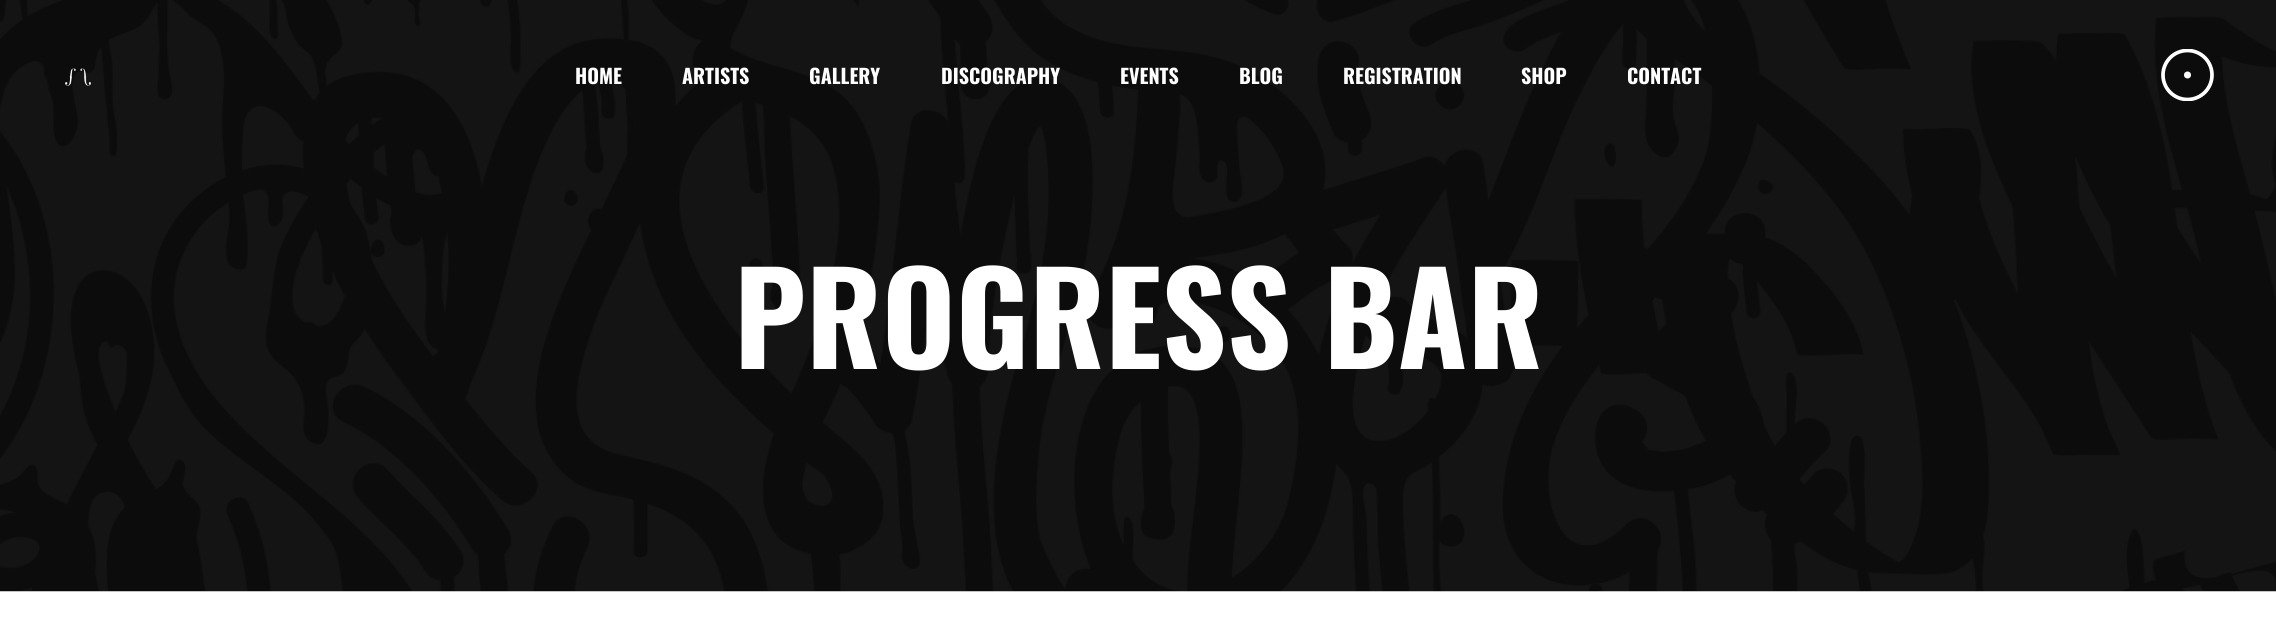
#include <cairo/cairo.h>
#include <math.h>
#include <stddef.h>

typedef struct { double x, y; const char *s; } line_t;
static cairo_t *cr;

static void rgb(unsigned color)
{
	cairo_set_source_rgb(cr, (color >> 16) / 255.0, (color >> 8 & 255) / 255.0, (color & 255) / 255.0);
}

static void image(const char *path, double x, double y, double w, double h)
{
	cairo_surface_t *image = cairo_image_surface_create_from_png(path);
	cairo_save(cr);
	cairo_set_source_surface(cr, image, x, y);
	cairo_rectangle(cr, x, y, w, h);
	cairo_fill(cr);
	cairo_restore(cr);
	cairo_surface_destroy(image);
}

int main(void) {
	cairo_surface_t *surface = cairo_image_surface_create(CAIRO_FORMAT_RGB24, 2276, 621);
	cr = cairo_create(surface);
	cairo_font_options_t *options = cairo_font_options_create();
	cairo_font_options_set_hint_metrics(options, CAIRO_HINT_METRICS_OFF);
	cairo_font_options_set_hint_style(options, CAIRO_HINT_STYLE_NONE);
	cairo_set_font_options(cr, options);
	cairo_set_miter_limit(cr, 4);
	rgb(0xffffff);
	cairo_paint(cr);
	image("img/2.png", 0, 0, 2276, 592);
	image("img/1.png", 65, 68, 26, 18);
	cairo_save(cr);
	cairo_rectangle(cr, 2161, 49, 53, 52);
	cairo_clip(cr);
	cairo_arc(cr, 2187.5, 75, 24.5, 0, 2 * M_PI);
	rgb(0xffffff);
	cairo_set_line_width(cr, 3.7);
	cairo_stroke(cr);
	cairo_restore(cr);
	rgb(0xffffff);
	cairo_arc(cr, 2187.5, 75, 3.5, 0, 2 * M_PI);
	cairo_fill(cr);
	cairo_select_font_face(cr, "Oswald", CAIRO_FONT_SLANT_NORMAL, CAIRO_FONT_WEIGHT_BOLD);
	cairo_set_font_size(cr, 20);
	{
		static const line_t items[] = {
			{575, 84, "HOME"},
			{682, 84, "ARTISTS"},
			{809, 84, "GALLERY"},
			{941, 84, "DISCOGRAPHY"},
			{1120, 84, "EVENTS"},
			{1239, 84, "BLOG"},
			{1343, 84, "REGISTRATION"},
			{1521, 84, "SHOP"},
			{1627, 84, "CONTACT"},
		};
		for (size_t i = 0; i < sizeof items / sizeof *items; i++) {
			cairo_move_to(cr, items[i].x, items[i].y);
			cairo_show_text(cr, items[i].s);
		}
	}
	cairo_set_font_size(cr, 126.25);
	cairo_move_to(cr, 734, 369);
	cairo_show_text(cr, "PROGRESS BAR");
	cairo_surface_write_to_png(surface, "page.png");
	cairo_font_options_destroy(options);
	cairo_destroy(cr);
	cairo_surface_destroy(surface);
	return 0;
}
